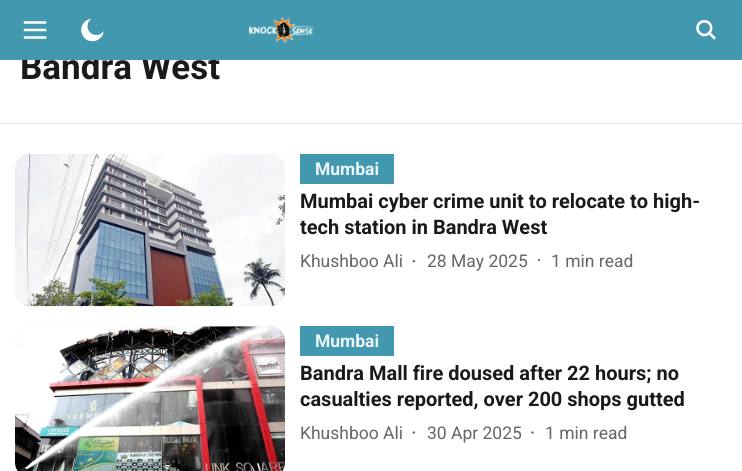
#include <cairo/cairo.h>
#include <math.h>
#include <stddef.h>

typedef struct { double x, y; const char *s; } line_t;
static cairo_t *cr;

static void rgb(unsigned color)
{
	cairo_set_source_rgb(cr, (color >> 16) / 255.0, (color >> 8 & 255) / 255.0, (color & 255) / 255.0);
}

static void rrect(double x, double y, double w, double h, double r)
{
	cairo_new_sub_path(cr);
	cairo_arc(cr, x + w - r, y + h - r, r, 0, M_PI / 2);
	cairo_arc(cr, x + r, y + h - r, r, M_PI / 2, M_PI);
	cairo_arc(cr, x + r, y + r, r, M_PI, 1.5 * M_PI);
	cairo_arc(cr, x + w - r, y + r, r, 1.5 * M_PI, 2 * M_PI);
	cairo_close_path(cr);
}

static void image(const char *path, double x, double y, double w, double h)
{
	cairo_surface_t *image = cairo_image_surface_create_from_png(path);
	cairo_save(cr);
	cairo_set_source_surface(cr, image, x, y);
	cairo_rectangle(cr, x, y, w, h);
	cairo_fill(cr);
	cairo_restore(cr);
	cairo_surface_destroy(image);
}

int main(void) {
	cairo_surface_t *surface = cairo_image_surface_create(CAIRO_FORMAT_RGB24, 742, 471);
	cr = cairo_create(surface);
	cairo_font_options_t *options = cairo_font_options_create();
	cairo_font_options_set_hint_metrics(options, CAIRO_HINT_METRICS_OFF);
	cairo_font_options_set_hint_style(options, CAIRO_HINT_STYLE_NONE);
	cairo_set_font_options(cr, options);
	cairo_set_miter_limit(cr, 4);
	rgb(0xffffff);
	cairo_paint(cr);
	rgb(0xe6e6e6);
	cairo_rectangle(cr, 0, 123, 742, 1);
	cairo_fill(cr);
	image("img/5.png", 15, 153, 270, 154);
	rgb(0x4298af);
	cairo_rectangle(cr, 300, 154, 94, 30);
	cairo_fill(cr);
	rgb(0x666666);
	cairo_arc(cr, 413.8, 261.2, 1.2, 0, 2 * M_PI);
	cairo_fill(cr);
	cairo_save(cr);
	cairo_rectangle(cr, 538, 259, 4, 4);
	cairo_clip(cr);
	cairo_arc(cr, 538.8, 260, 1.2, 0, 2 * M_PI);
	cairo_fill(cr);
	cairo_restore(cr);
	rgb(0xf0f0f0);
	rrect(15, 326, 270, 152, 15);
	cairo_fill(cr);
	image("img/6.png", 15, 326, 270, 145);
	rgb(0x4298af);
	cairo_rectangle(cr, 300, 326, 94, 30);
	cairo_fill(cr);
	rgb(0x666666);
	cairo_arc(cr, 413.8, 432.5, 1.2, 0, 2 * M_PI);
	cairo_fill(cr);
	cairo_arc(cr, 532.5, 432.5, 1.2, 0, 2 * M_PI);
	cairo_fill(cr);
	cairo_select_font_face(cr, "Roboto", CAIRO_FONT_SLANT_NORMAL, CAIRO_FONT_WEIGHT_BOLD);
	cairo_set_font_size(cr, 35);
	rgb(0x1a1a1a);
	cairo_move_to(cr, 20, 79);
	cairo_show_text(cr, "Bandra West");
	rgb(0x4298af);
	cairo_rectangle(cr, 0, 0, 742, 60);
	cairo_fill(cr);
	image("img/4.png", 696, 20, 20, 20);
	image("img/2.png", 81, 18, 23, 24);
	image("img/1.png", 23, 21, 24, 18);
	image("img/3.png", 249, 16, 64, 28);
	cairo_set_font_size(cr, 17.5);
	rgb(0xecf5f7);
	cairo_move_to(cr, 315, 175);
	cairo_show_text(cr, "Mumbai");
	cairo_set_font_size(cr, 20);
	rgb(0x1a1a1a);
	cairo_move_to(cr, 300, 208);
	cairo_show_text(cr, "Mumbai cyber crime unit to relocate to high-");
	cairo_move_to(cr, 300, 234);
	cairo_show_text(cr, "tech station in Bandra West");
	cairo_select_font_face(cr, "Roboto", CAIRO_FONT_SLANT_NORMAL, CAIRO_FONT_WEIGHT_NORMAL);
	cairo_set_font_size(cr, 17.5);
	rgb(0x666666);
	{
		static const line_t items[] = {
			{300, 267, "Khushboo Ali"},
			{427, 267, "28 May 2025"},
			{551, 267, "1 min read"},
		};
		for (size_t i = 0; i < sizeof items / sizeof *items; i++) {
			cairo_move_to(cr, items[i].x, items[i].y);
			cairo_show_text(cr, items[i].s);
		}
	}
	cairo_select_font_face(cr, "Roboto", CAIRO_FONT_SLANT_NORMAL, CAIRO_FONT_WEIGHT_BOLD);
	rgb(0xecf5f7);
	cairo_move_to(cr, 315, 347);
	cairo_show_text(cr, "Mumbai");
	cairo_set_font_size(cr, 20);
	rgb(0x1a1a1a);
	cairo_move_to(cr, 300, 380);
	cairo_show_text(cr, "Bandra Mall fire doused after 22 hours; no");
	cairo_move_to(cr, 300, 406);
	cairo_show_text(cr, "casualties reported, over 200 shops gutted");
	cairo_select_font_face(cr, "Roboto", CAIRO_FONT_SLANT_NORMAL, CAIRO_FONT_WEIGHT_NORMAL);
	cairo_set_font_size(cr, 17.5);
	rgb(0x666666);
	{
		static const line_t items[] = {
			{300, 439, "Khushboo Ali"},
			{427, 439, "30 Apr 2025"},
			{545, 439, "1 min read"},
		};
		for (size_t i = 0; i < sizeof items / sizeof *items; i++) {
			cairo_move_to(cr, items[i].x, items[i].y);
			cairo_show_text(cr, items[i].s);
		}
	}
	cairo_surface_write_to_png(surface, "page.png");
	cairo_font_options_destroy(options);
	cairo_destroy(cr);
	cairo_surface_destroy(surface);
	return 0;
}
